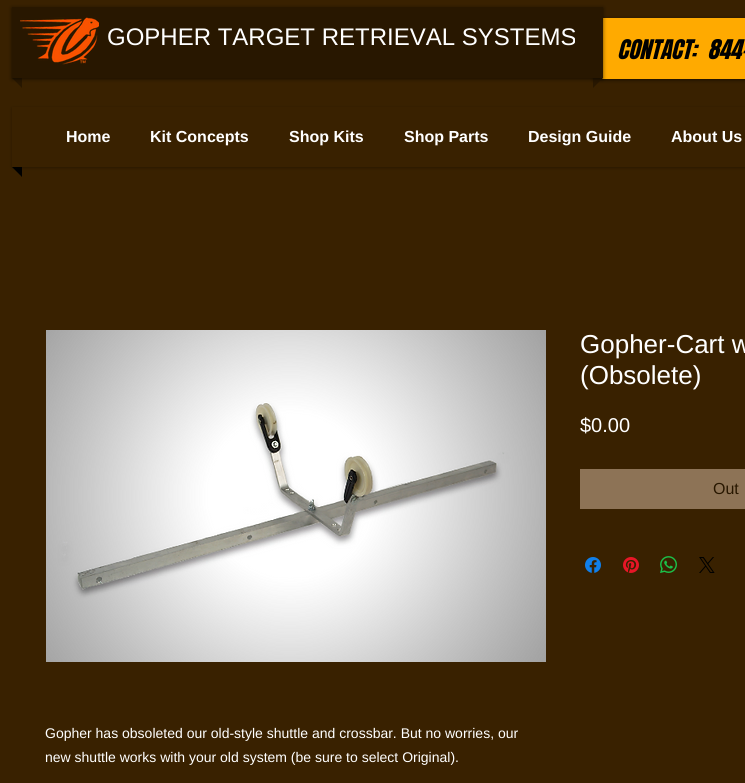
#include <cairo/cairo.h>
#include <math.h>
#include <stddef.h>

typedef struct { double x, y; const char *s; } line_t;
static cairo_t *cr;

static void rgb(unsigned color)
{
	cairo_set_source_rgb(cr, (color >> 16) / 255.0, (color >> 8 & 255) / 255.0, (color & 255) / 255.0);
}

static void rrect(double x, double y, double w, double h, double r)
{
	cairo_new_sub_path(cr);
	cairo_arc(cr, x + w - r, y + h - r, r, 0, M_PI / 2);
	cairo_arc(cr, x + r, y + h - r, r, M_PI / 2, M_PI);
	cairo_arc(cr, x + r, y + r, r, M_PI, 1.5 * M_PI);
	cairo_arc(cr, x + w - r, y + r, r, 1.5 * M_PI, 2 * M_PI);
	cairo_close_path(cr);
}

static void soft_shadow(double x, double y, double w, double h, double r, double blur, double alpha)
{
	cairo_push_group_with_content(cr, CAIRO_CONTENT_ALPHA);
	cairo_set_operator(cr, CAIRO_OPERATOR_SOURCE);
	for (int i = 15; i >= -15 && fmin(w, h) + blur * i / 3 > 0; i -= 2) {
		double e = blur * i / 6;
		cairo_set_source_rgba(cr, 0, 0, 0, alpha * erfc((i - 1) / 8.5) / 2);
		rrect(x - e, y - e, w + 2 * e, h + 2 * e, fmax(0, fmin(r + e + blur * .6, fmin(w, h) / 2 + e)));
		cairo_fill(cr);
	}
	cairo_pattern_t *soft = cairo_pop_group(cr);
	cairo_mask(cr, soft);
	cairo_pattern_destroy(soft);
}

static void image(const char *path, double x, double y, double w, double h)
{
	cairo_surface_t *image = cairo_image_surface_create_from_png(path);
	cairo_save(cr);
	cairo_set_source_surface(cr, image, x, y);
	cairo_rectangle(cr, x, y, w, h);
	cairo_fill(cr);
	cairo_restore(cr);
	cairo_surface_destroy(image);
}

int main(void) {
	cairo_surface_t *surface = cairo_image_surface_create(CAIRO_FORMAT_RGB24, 745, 783);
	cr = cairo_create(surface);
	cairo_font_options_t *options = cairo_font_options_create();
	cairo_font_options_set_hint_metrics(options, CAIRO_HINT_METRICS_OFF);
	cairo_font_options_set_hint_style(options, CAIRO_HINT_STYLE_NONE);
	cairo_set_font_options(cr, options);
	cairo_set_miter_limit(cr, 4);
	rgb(0x392100);
	cairo_paint(cr);
	rgb(0x281700);
	cairo_new_path(cr);
	cairo_move_to(cr, 12, 78);
	cairo_line_to(cr, 22, 78);
	cairo_line_to(cr, 22, 88);
	cairo_close_path(cr);
	cairo_fill(cr);
	rgb(0x000000);
	soft_shadow(594, 19, 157, 61, 0, 2, 0.6);
	rgb(0xffaa00);
	cairo_rectangle(cr, 602, 18, 143, 61);
	cairo_fill(cr);
	rgb(0x281700);
	cairo_new_path(cr);
	cairo_move_to(cr, 593, 78);
	cairo_line_to(cr, 603, 78);
	cairo_line_to(cr, 593, 88);
	cairo_close_path(cr);
	cairo_fill(cr);
	rgb(0x000000);
	soft_shadow(12, 8, 591, 71, 0, 2, 0.6);
	rgb(0x281700);
	cairo_rectangle(cr, 12, 7, 591, 71);
	cairo_fill(cr);
	image("img/1.png", 20, 17, 79, 48);
	rgb(0x000000);
	cairo_new_path(cr);
	cairo_move_to(cr, 12, 167);
	cairo_line_to(cr, 22, 167);
	cairo_line_to(cr, 22, 177);
	cairo_close_path(cr);
	cairo_fill(cr);
	cairo_save(cr);
	cairo_set_fill_rule(cr, CAIRO_FILL_RULE_EVEN_ODD);
	cairo_new_path(cr);
	cairo_move_to(cr, 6, 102);
	cairo_line_to(cr, 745, 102);
	cairo_line_to(cr, 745, 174);
	cairo_line_to(cr, 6, 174);
	cairo_close_path(cr);
	cairo_move_to(cr, 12, 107);
	cairo_line_to(cr, 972, 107);
	cairo_line_to(cr, 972, 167);
	cairo_line_to(cr, 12, 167);
	cairo_close_path(cr);
	cairo_clip(cr);
	rgb(0x000000);
	soft_shadow(12, 108, 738, 60, 0, 1.5, 0.3);
	cairo_restore(cr);
	rgb(0x8d7356);
	cairo_rectangle(cr, 580, 469, 165, 40);
	cairo_fill(cr);
	image("img/2.png", 585, 557, 16, 16);
	image("img/3.png", 623, 557, 16, 16);
	image("img/4.png", 660, 556, 17, 17);
	image("img/5.png", 699, 557, 16, 16);
	image("img/6.png", 46, 330, 500, 332);
	cairo_select_font_face(cr, "Liberation Sans", CAIRO_FONT_SLANT_NORMAL, CAIRO_FONT_WEIGHT_NORMAL);
	cairo_set_font_size(cr, 24);
	rgb(0xffffff);
	cairo_move_to(cr, 107, 45);
	cairo_show_text(cr, "GOPHER TARGET RETRIEVAL SYSTEMS");
	cairo_select_font_face(cr, "Anton", CAIRO_FONT_SLANT_ITALIC, CAIRO_FONT_WEIGHT_NORMAL);
	cairo_set_font_size(cr, 23);
	rgb(0x000000);
	cairo_move_to(cr, 617, 59);
	cairo_show_text(cr, "CONTACT:  844-");
	cairo_select_font_face(cr, "Liberation Sans", CAIRO_FONT_SLANT_NORMAL, CAIRO_FONT_WEIGHT_BOLD);
	cairo_set_font_size(cr, 16);
	rgb(0xffffff);
	{
		static const line_t items[] = {
			{66, 142, "Home"},
			{150, 142, "Kit Concepts"},
			{289, 142, "Shop Kits"},
			{404, 142, "Shop Parts"},
			{528, 142, "Design Guide"},
			{671, 142, "About Us"},
		};
		for (size_t i = 0; i < sizeof items / sizeof *items; i++) {
			cairo_move_to(cr, items[i].x, items[i].y);
			cairo_show_text(cr, items[i].s);
		}
	}
	cairo_select_font_face(cr, "Liberation Sans", CAIRO_FONT_SLANT_NORMAL, CAIRO_FONT_WEIGHT_NORMAL);
	cairo_set_font_size(cr, 26);
	cairo_move_to(cr, 580, 353);
	cairo_show_text(cr, "Gopher-Cart w");
	cairo_move_to(cr, 580, 384);
	cairo_show_text(cr, "(Obsolete)");
	cairo_set_font_size(cr, 20);
	cairo_move_to(cr, 580, 432);
	cairo_show_text(cr, "$0.00");
	cairo_set_font_size(cr, 16);
	rgb(0x281700);
	cairo_move_to(cr, 713, 494);
	cairo_show_text(cr, "Out");
	cairo_set_font_size(cr, 14);
	rgb(0xffffff);
	cairo_move_to(cr, 45, 738);
	cairo_show_text(cr, "Gopher has obsoleted our old-style shuttle and crossbar. But no worries, our");
	cairo_move_to(cr, 45, 762);
	cairo_show_text(cr, "new shuttle works with your old system (be sure to select Original).");
	cairo_surface_write_to_png(surface, "page.png");
	cairo_font_options_destroy(options);
	cairo_destroy(cr);
	cairo_surface_destroy(surface);
	return 0;
}
